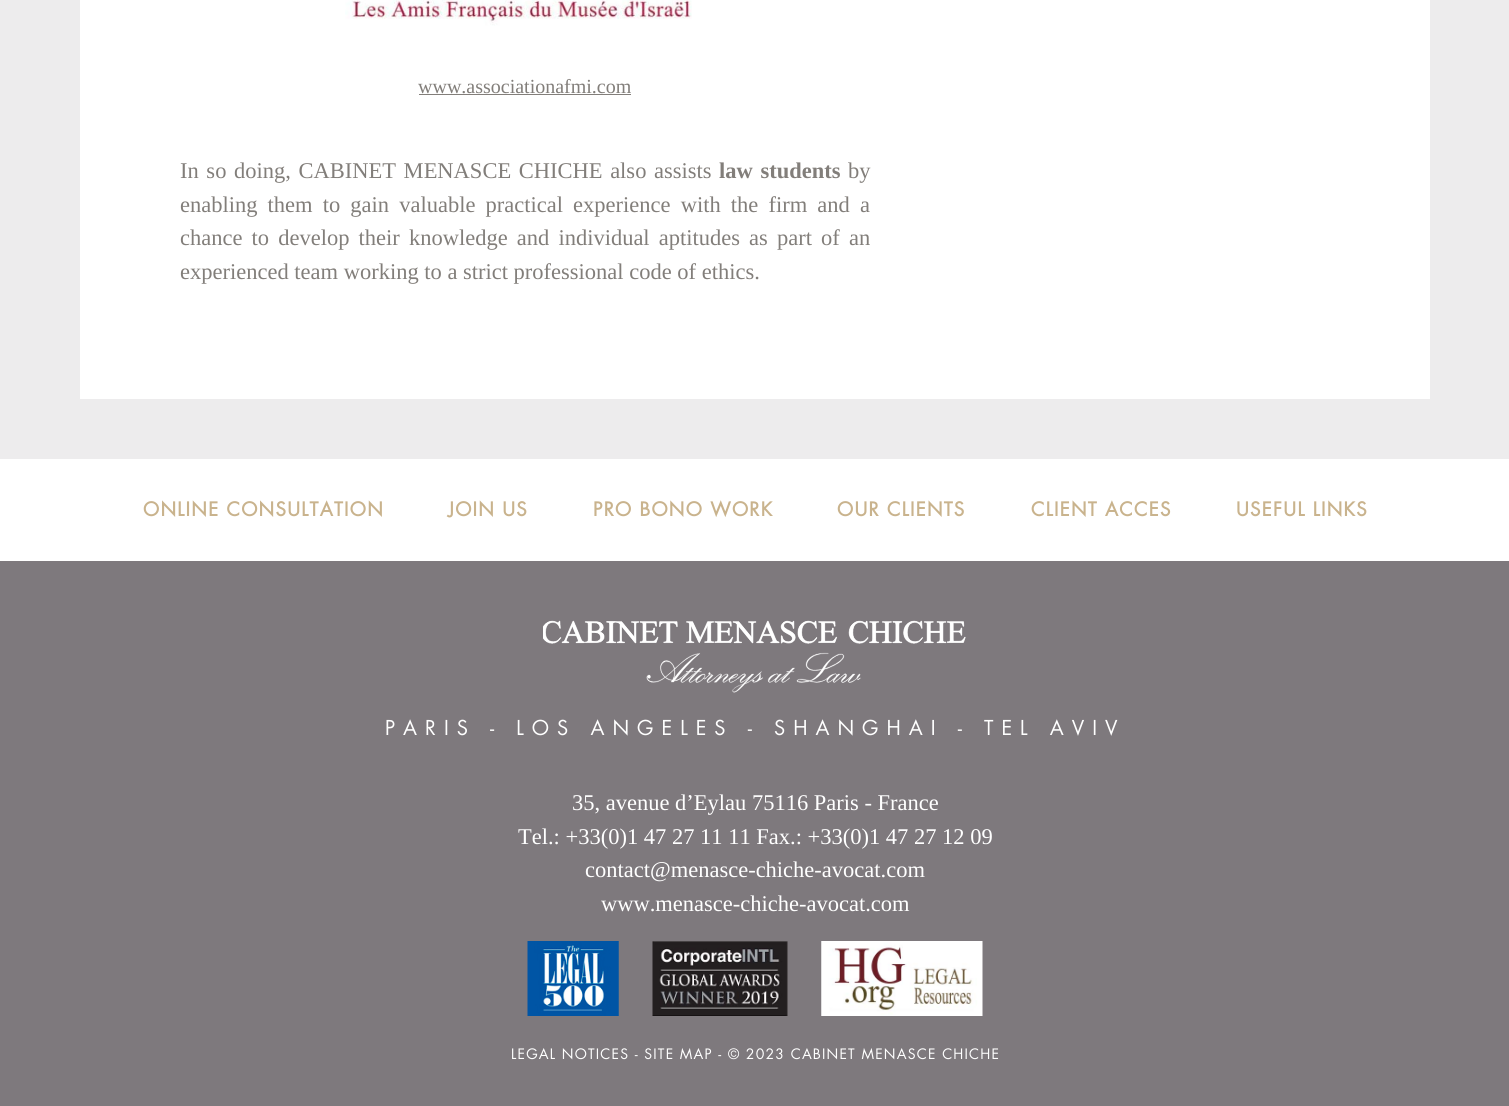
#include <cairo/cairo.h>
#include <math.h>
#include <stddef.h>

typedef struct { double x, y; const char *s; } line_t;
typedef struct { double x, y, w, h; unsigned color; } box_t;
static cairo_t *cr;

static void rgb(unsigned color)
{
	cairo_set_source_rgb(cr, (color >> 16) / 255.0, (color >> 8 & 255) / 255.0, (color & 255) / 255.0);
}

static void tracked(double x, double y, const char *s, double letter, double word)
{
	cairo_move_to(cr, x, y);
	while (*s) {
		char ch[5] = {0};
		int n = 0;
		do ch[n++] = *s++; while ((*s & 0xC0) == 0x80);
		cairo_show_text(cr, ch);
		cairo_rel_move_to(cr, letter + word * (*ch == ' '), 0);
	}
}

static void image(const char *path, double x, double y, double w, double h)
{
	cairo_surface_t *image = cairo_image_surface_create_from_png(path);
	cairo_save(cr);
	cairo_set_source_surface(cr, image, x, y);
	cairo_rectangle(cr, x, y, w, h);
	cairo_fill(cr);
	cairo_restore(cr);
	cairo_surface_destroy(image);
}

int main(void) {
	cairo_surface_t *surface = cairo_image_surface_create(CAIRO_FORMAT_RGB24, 1509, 1106);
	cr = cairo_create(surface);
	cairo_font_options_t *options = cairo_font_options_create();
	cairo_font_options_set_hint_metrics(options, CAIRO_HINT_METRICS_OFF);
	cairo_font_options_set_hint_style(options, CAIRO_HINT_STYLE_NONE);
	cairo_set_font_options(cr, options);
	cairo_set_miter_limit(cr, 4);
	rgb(0xedeced);
	cairo_paint(cr);
	rgb(0xffffff);
	cairo_rectangle(cr, 80, 0, 1350, 399);
	cairo_fill(cr);
	image("img/1.png", 345, 0, 347, 26);
	{
		static const box_t items[] = {
			{419, 94, 212, 1, 0x827e7a},
			{0, 561, 1509, 545, 0x7e797d},
			{0, 459, 1509, 102, 0xffffff},
		};
		for (size_t i = 0; i < sizeof items / sizeof *items; i++) {
			rgb(items[i].color);
			cairo_rectangle(cr, items[i].x, items[i].y, items[i].w, items[i].h);
			cairo_fill(cr);
		}
	}
	image("img/2.png", 543, 620, 423, 73);
	image("img/3.png", 527, 941, 92, 75);
	image("img/4.png", 652, 941, 136, 75);
	image("img/5.png", 821, 941, 162, 75);
	cairo_select_font_face(cr, "Liberation Serif", CAIRO_FONT_SLANT_NORMAL, CAIRO_FONT_WEIGHT_NORMAL);
	cairo_set_font_size(cr, 20);
	rgb(0x827e7a);
	cairo_move_to(cr, 418, 93);
	cairo_show_text(cr, "www.associationafmi.com");
	cairo_set_font_size(cr, 22.5);
	tracked(180, 178, "In so doing, CABINET MENASCE CHICHE also assists", 0, 2);
	cairo_select_font_face(cr, "Liberation Serif", CAIRO_FONT_SLANT_NORMAL, CAIRO_FONT_WEIGHT_BOLD);
	tracked(719, 178, "law students", 0, 2);
	cairo_select_font_face(cr, "Liberation Serif", CAIRO_FONT_SLANT_NORMAL, CAIRO_FONT_WEIGHT_NORMAL);
	cairo_move_to(cr, 848, 178);
	cairo_show_text(cr, "by");
	tracked(180, 212, "enabling them to gain valuable practical experience with the firm and a", 0, 4.5);
	tracked(180, 245, "chance to develop their knowledge and individual aptitudes as part of an", 0, 3.5);
	cairo_move_to(cr, 180, 279);
	cairo_show_text(cr, "experienced team working to a strict professional code of ethics.");
	cairo_select_font_face(cr, "Futura", CAIRO_FONT_SLANT_NORMAL, CAIRO_FONT_WEIGHT_BOLD);
	cairo_set_font_size(cr, 18.75);
	rgb(0xc9b38d);
	{
		static const line_t items[] = {
			{143, 516, "ONLINE CONSULTATION"},
			{448, 516, "JOIN US"},
			{593, 516, "PRO BONO WORK"},
			{837, 516, "OUR CLIENTS"},
			{1031, 516, "CLIENT ACCES"},
			{1236, 516, "USEFUL LINKS"},
		};
		for (size_t i = 0; i < sizeof items / sizeof *items; i++) {
			tracked(items[i].x, items[i].y, items[i].s, 1.25, 0);
		}
	}
	cairo_select_font_face(cr, "Futura", CAIRO_FONT_SLANT_NORMAL, CAIRO_FONT_WEIGHT_NORMAL);
	cairo_set_font_size(cr, 20);
	rgb(0xffffff);
	tracked(385, 735, "PARIS - LOS ANGELES - SHANGHAI - TEL AVIV", 8, 0);
	cairo_select_font_face(cr, "Liberation Serif", CAIRO_FONT_SLANT_NORMAL, CAIRO_FONT_WEIGHT_NORMAL);
	cairo_set_font_size(cr, 22.5);
	{
		static const line_t items[] = {
			{572, 810, "35, avenue d’Eylau 75116 Paris - France"},
			{518, 844, "Tel.: +33(0)1 47 27 11 11 Fax.: +33(0)1 47 27 12 09"},
			{585, 877, "contact@menasce-chiche-avocat.com"},
			{601, 911, "www.menasce-chiche-avocat.com"},
		};
		for (size_t i = 0; i < sizeof items / sizeof *items; i++) {
			cairo_move_to(cr, items[i].x, items[i].y);
			cairo_show_text(cr, items[i].s);
		}
	}
	cairo_select_font_face(cr, "Futura", CAIRO_FONT_SLANT_NORMAL, CAIRO_FONT_WEIGHT_NORMAL);
	cairo_set_font_size(cr, 14);
	tracked(511, 1059, "LEGAL NOTICES - SITE MAP - © 2023 CABINET MENASCE CHICHE", 1.2, 0);
	cairo_surface_write_to_png(surface, "page.png");
	cairo_font_options_destroy(options);
	cairo_destroy(cr);
	cairo_surface_destroy(surface);
	return 0;
}
